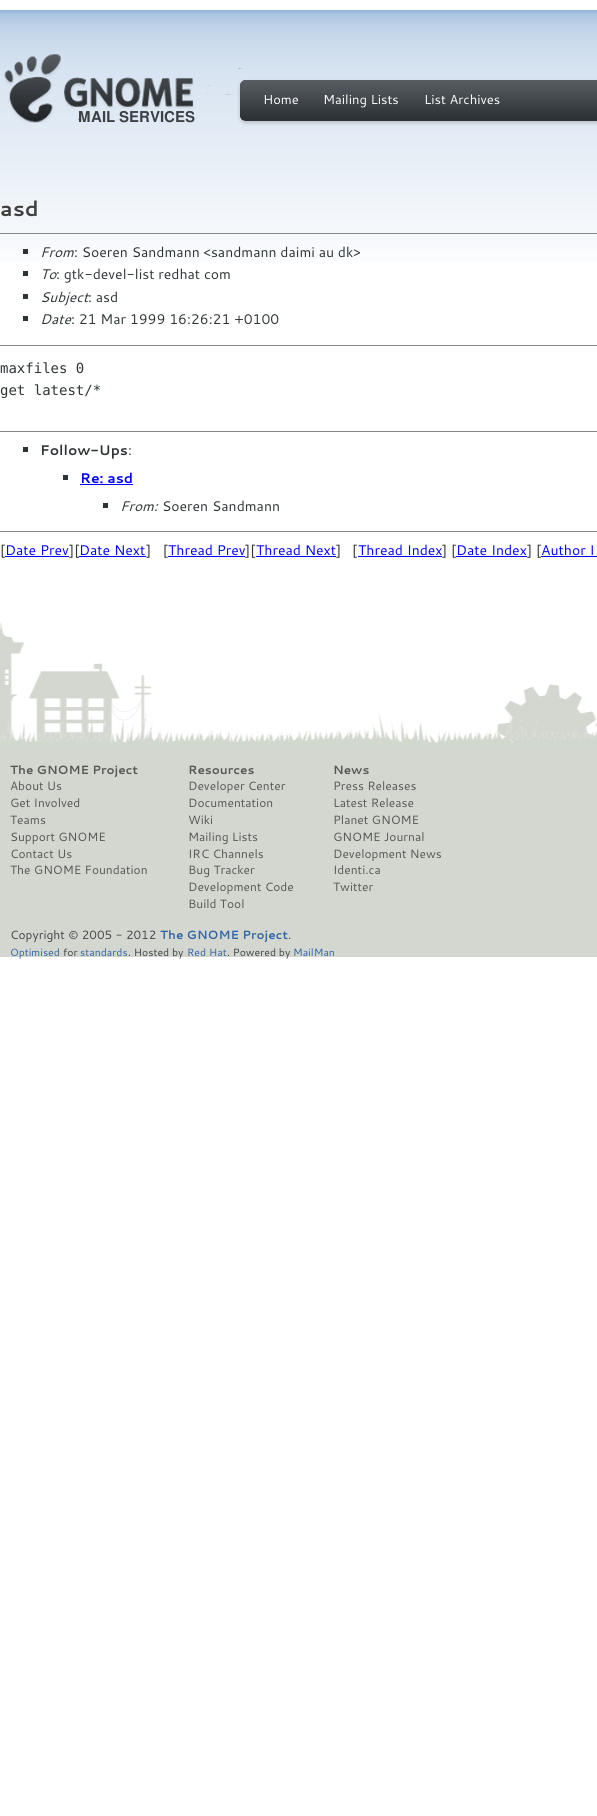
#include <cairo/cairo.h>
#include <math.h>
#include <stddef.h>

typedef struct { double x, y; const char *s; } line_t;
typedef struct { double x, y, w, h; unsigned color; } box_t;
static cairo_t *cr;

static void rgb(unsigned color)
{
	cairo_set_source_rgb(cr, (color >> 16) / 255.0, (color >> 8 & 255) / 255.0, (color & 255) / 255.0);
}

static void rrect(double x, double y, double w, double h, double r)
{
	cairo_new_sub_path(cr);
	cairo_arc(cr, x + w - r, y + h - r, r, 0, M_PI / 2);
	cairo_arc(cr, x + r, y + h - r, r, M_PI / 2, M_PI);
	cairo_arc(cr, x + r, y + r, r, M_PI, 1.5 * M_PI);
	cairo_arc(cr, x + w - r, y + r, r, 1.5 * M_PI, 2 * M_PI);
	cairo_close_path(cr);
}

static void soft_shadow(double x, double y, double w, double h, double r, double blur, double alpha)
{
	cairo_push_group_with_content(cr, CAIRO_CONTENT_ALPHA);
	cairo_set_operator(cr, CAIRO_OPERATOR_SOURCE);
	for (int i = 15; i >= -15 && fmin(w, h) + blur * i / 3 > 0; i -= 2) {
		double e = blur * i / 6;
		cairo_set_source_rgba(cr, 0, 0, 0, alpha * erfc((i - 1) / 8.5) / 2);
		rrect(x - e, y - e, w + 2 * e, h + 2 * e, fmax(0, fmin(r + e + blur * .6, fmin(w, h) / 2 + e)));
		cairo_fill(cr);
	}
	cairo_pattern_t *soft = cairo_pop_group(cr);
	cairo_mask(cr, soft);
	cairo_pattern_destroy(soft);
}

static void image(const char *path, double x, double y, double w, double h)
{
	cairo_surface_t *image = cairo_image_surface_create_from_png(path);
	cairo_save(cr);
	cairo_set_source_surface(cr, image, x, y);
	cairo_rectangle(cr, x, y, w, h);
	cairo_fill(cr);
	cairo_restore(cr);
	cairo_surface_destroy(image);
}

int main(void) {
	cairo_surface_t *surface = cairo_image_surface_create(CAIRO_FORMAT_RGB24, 597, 1816);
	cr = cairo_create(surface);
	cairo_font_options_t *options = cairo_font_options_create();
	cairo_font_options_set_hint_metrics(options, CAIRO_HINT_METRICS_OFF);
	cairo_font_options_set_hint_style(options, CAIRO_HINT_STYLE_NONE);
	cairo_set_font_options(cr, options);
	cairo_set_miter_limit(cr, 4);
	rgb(0xffffff);
	cairo_paint(cr);
	image("img/1.png", 0, 10, 597, 252);
	image("img/2.png", 4, 54, 238, 69);
	rgb(0x000000);
	soft_shadow(240, 82, 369, 41, 6, 2, 0.2);
	rgb(0x2e3436);
	rrect(240, 80, 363, 41, 6);
	cairo_fill(cr);
	image("img/3.png", 240, 80, 357, 40);
	{
		static const box_t items[] = {
			{0, 233, 597, 1, 0x888888},
			{23, 249, 5, 5, 0x2e3436},
			{23, 271, 5, 5, 0x2e3436},
			{23, 294, 5, 5, 0x2e3436},
			{23, 316, 5, 5, 0x2e3436},
			{0, 345, 597, 1, 0x888888},
			{0, 431, 597, 1, 0x888888},
			{23, 447, 5, 5, 0x2e3436},
			{63, 475, 5, 5, 0x2e3436},
			{80, 484, 53, 1, 0x0000ff},
			{103, 503, 5, 5, 0x2e3436},
			{0, 531, 597, 1, 0x888888},
			{5, 556, 64, 1, 0x0000ff},
			{168, 556, 77, 1, 0x0000ff},
			{256, 556, 80, 1, 0x0000ff},
			{358, 556, 84, 1, 0x0000ff},
			{456, 556, 71, 1, 0x0000ff},
			{541, 556, 56, 1, 0x0000ff},
		};
		for (size_t i = 0; i < sizeof items / sizeof *items; i++) {
			rgb(items[i].color);
			cairo_rectangle(cr, items[i].x, items[i].y, items[i].w, items[i].h);
			cairo_fill(cr);
		}
	}
	image("img/4.png", 0, 622, 597, 120);
	image("img/5.png", 0, 713, 597, 35);
	rgb(0xd3d7cf);
	cairo_rectangle(cr, 0, 748, 597, 209);
	cairo_fill(cr);
	cairo_select_font_face(cr, "Cantarell", CAIRO_FONT_SLANT_NORMAL, CAIRO_FONT_WEIGHT_NORMAL);
	cairo_set_font_size(cr, 13);
	rgb(0xffffff);
	{
		static const line_t items[] = {
			{263, 104, "Home"},
			{323, 104, "Mailing Lists"},
			{424, 104, "List Archives"},
		};
		for (size_t i = 0; i < sizeof items / sizeof *items; i++) {
			cairo_move_to(cr, items[i].x, items[i].y);
			cairo_show_text(cr, items[i].s);
		}
	}
	cairo_select_font_face(cr, "Cantarell", CAIRO_FONT_SLANT_NORMAL, CAIRO_FONT_WEIGHT_BOLD);
	cairo_set_font_size(cr, 21);
	rgb(0x3f3f3f);
	cairo_move_to(cr, 0, 216);
	cairo_show_text(cr, "asd");
	cairo_select_font_face(cr, "Cantarell", CAIRO_FONT_SLANT_ITALIC, CAIRO_FONT_WEIGHT_NORMAL);
	cairo_set_font_size(cr, 14);
	rgb(0x2e3436);
	cairo_move_to(cr, 40, 257);
	cairo_show_text(cr, "From");
	cairo_select_font_face(cr, "Cantarell", CAIRO_FONT_SLANT_NORMAL, CAIRO_FONT_WEIGHT_NORMAL);
	cairo_move_to(cr, 74, 257);
	cairo_show_text(cr, ": Soeren Sandmann <sandmann daimi au dk>");
	cairo_select_font_face(cr, "Cantarell", CAIRO_FONT_SLANT_ITALIC, CAIRO_FONT_WEIGHT_NORMAL);
	cairo_move_to(cr, 40, 279);
	cairo_show_text(cr, "To");
	cairo_select_font_face(cr, "Cantarell", CAIRO_FONT_SLANT_NORMAL, CAIRO_FONT_WEIGHT_NORMAL);
	cairo_move_to(cr, 56, 279);
	cairo_show_text(cr, ": gtk-devel-list redhat com");
	cairo_select_font_face(cr, "Cantarell", CAIRO_FONT_SLANT_ITALIC, CAIRO_FONT_WEIGHT_NORMAL);
	cairo_move_to(cr, 40, 302);
	cairo_show_text(cr, "Subject");
	cairo_select_font_face(cr, "Cantarell", CAIRO_FONT_SLANT_NORMAL, CAIRO_FONT_WEIGHT_NORMAL);
	cairo_move_to(cr, 88, 302);
	cairo_show_text(cr, ": asd");
	cairo_select_font_face(cr, "Cantarell", CAIRO_FONT_SLANT_ITALIC, CAIRO_FONT_WEIGHT_NORMAL);
	cairo_move_to(cr, 40, 324);
	cairo_show_text(cr, "Date");
	cairo_select_font_face(cr, "Cantarell", CAIRO_FONT_SLANT_NORMAL, CAIRO_FONT_WEIGHT_NORMAL);
	cairo_move_to(cr, 71, 324);
	cairo_show_text(cr, ": 21 Mar 1999 16:26:21 +0100");
	cairo_select_font_face(cr, "DejaVu Sans Mono", CAIRO_FONT_SLANT_NORMAL, CAIRO_FONT_WEIGHT_NORMAL);
	cairo_move_to(cr, 0, 373);
	cairo_show_text(cr, "maxfiles 0");
	cairo_move_to(cr, 0, 395);
	cairo_show_text(cr, "get latest/*");
	cairo_select_font_face(cr, "Cantarell", CAIRO_FONT_SLANT_NORMAL, CAIRO_FONT_WEIGHT_BOLD);
	cairo_move_to(cr, 40, 455);
	cairo_show_text(cr, "Follow-Ups");
	cairo_select_font_face(cr, "Cantarell", CAIRO_FONT_SLANT_NORMAL, CAIRO_FONT_WEIGHT_NORMAL);
	cairo_move_to(cr, 128, 455);
	cairo_show_text(cr, ":");
	cairo_select_font_face(cr, "Cantarell", CAIRO_FONT_SLANT_NORMAL, CAIRO_FONT_WEIGHT_BOLD);
	rgb(0x0000ff);
	cairo_move_to(cr, 80, 483);
	cairo_show_text(cr, "Re: asd");
	cairo_select_font_face(cr, "Cantarell", CAIRO_FONT_SLANT_ITALIC, CAIRO_FONT_WEIGHT_NORMAL);
	rgb(0x2e3436);
	cairo_move_to(cr, 120, 511);
	cairo_show_text(cr, "From:");
	cairo_select_font_face(cr, "Cantarell", CAIRO_FONT_SLANT_NORMAL, CAIRO_FONT_WEIGHT_NORMAL);
	cairo_move_to(cr, 162, 511);
	cairo_show_text(cr, "Soeren Sandmann");
	cairo_move_to(cr, 0, 555);
	cairo_show_text(cr, "[");
	rgb(0x0000ff);
	cairo_move_to(cr, 5, 555);
	cairo_show_text(cr, "Date Prev");
	rgb(0x2e3436);
	cairo_move_to(cr, 69, 555);
	cairo_show_text(cr, "][");
	rgb(0x0000ff);
	cairo_move_to(cr, 79, 555);
	cairo_show_text(cr, "Date Next");
	cairo_rectangle(cr, 79, 556, 67, 1);
	cairo_fill(cr);
	rgb(0x2e3436);
	cairo_move_to(cr, 146, 555);
	cairo_show_text(cr, "]   [");
	rgb(0x0000ff);
	cairo_move_to(cr, 168, 555);
	cairo_show_text(cr, "Thread Prev");
	rgb(0x2e3436);
	cairo_move_to(cr, 245, 555);
	cairo_show_text(cr, "][");
	rgb(0x0000ff);
	cairo_move_to(cr, 256, 555);
	cairo_show_text(cr, "Thread Next");
	rgb(0x2e3436);
	cairo_move_to(cr, 336, 555);
	cairo_show_text(cr, "]");
	cairo_move_to(cr, 352, 555);
	cairo_show_text(cr, "[");
	rgb(0x0000ff);
	cairo_move_to(cr, 358, 555);
	cairo_show_text(cr, "Thread Index");
	rgb(0x2e3436);
	cairo_move_to(cr, 442, 555);
	cairo_show_text(cr, "] [");
	rgb(0x0000ff);
	cairo_move_to(cr, 456, 555);
	cairo_show_text(cr, "Date Index");
	rgb(0x2e3436);
	cairo_move_to(cr, 527, 555);
	cairo_show_text(cr, "] [");
	rgb(0x0000ff);
	cairo_move_to(cr, 541, 555);
	cairo_show_text(cr, "Author I");
	cairo_select_font_face(cr, "Cantarell", CAIRO_FONT_SLANT_NORMAL, CAIRO_FONT_WEIGHT_BOLD);
	cairo_set_font_size(cr, 12);
	rgb(0x555753);
	cairo_move_to(cr, 10, 774);
	cairo_show_text(cr, "The GNOME Project");
	cairo_select_font_face(cr, "Cantarell", CAIRO_FONT_SLANT_NORMAL, CAIRO_FONT_WEIGHT_NORMAL);
	{
		static const line_t items[] = {
			{10, 790, "About Us"},
			{10, 807, "Get Involved"},
			{10, 824, "Teams"},
			{10, 841, "Support GNOME"},
			{10, 858, "Contact Us"},
			{10, 874, "The GNOME Foundation"},
		};
		for (size_t i = 0; i < sizeof items / sizeof *items; i++) {
			cairo_move_to(cr, items[i].x, items[i].y);
			cairo_show_text(cr, items[i].s);
		}
	}
	cairo_select_font_face(cr, "Cantarell", CAIRO_FONT_SLANT_NORMAL, CAIRO_FONT_WEIGHT_BOLD);
	cairo_move_to(cr, 188, 774);
	cairo_show_text(cr, "Resources");
	cairo_select_font_face(cr, "Cantarell", CAIRO_FONT_SLANT_NORMAL, CAIRO_FONT_WEIGHT_NORMAL);
	{
		static const line_t items[] = {
			{188, 790, "Developer Center"},
			{188, 807, "Documentation"},
			{188, 824, "Wiki"},
			{188, 841, "Mailing Lists"},
			{188, 858, "IRC Channels"},
			{188, 874, "Bug Tracker"},
			{188, 891, "Development Code"},
			{188, 908, "Build Tool"},
		};
		for (size_t i = 0; i < sizeof items / sizeof *items; i++) {
			cairo_move_to(cr, items[i].x, items[i].y);
			cairo_show_text(cr, items[i].s);
		}
	}
	cairo_select_font_face(cr, "Cantarell", CAIRO_FONT_SLANT_NORMAL, CAIRO_FONT_WEIGHT_BOLD);
	cairo_move_to(cr, 333, 774);
	cairo_show_text(cr, "News");
	cairo_select_font_face(cr, "Cantarell", CAIRO_FONT_SLANT_NORMAL, CAIRO_FONT_WEIGHT_NORMAL);
	{
		static const line_t items[] = {
			{333, 790, "Press Releases"},
			{333, 807, "Latest Release"},
			{333, 824, "Planet GNOME"},
			{333, 841, "GNOME Journal"},
			{333, 858, "Development News"},
			{333, 874, "Identi.ca"},
			{333, 891, "Twitter"},
		};
		for (size_t i = 0; i < sizeof items / sizeof *items; i++) {
			cairo_move_to(cr, items[i].x, items[i].y);
			cairo_show_text(cr, items[i].s);
		}
	}
	rgb(0x3f4448);
	cairo_move_to(cr, 10, 939);
	cairo_show_text(cr, "Copyright © 2005 - 2012");
	cairo_select_font_face(cr, "Cantarell", CAIRO_FONT_SLANT_NORMAL, CAIRO_FONT_WEIGHT_BOLD);
	rgb(0x3465a4);
	cairo_move_to(cr, 160, 939);
	cairo_show_text(cr, "The GNOME Project");
	cairo_select_font_face(cr, "Cantarell", CAIRO_FONT_SLANT_NORMAL, CAIRO_FONT_WEIGHT_NORMAL);
	rgb(0x3f4448);
	cairo_move_to(cr, 288, 939);
	cairo_show_text(cr, ".");
	cairo_set_font_size(cr, 10.5);
	rgb(0x3465a4);
	cairo_move_to(cr, 10, 956);
	cairo_show_text(cr, "Optimised");
	rgb(0x3f4448);
	cairo_move_to(cr, 63, 956);
	cairo_show_text(cr, "for");
	rgb(0x3465a4);
	cairo_move_to(cr, 80, 956);
	cairo_show_text(cr, "standards");
	rgb(0x3f4448);
	cairo_move_to(cr, 128, 956);
	cairo_show_text(cr, ". Hosted by");
	rgb(0x3465a4);
	cairo_move_to(cr, 187, 956);
	cairo_show_text(cr, "Red Hat");
	rgb(0x3f4448);
	cairo_move_to(cr, 227, 956);
	cairo_show_text(cr, ". Powered by");
	rgb(0x3465a4);
	cairo_move_to(cr, 293, 956);
	cairo_show_text(cr, "MailMan");
	cairo_surface_write_to_png(surface, "page.png");
	cairo_font_options_destroy(options);
	cairo_destroy(cr);
	cairo_surface_destroy(surface);
	return 0;
}
